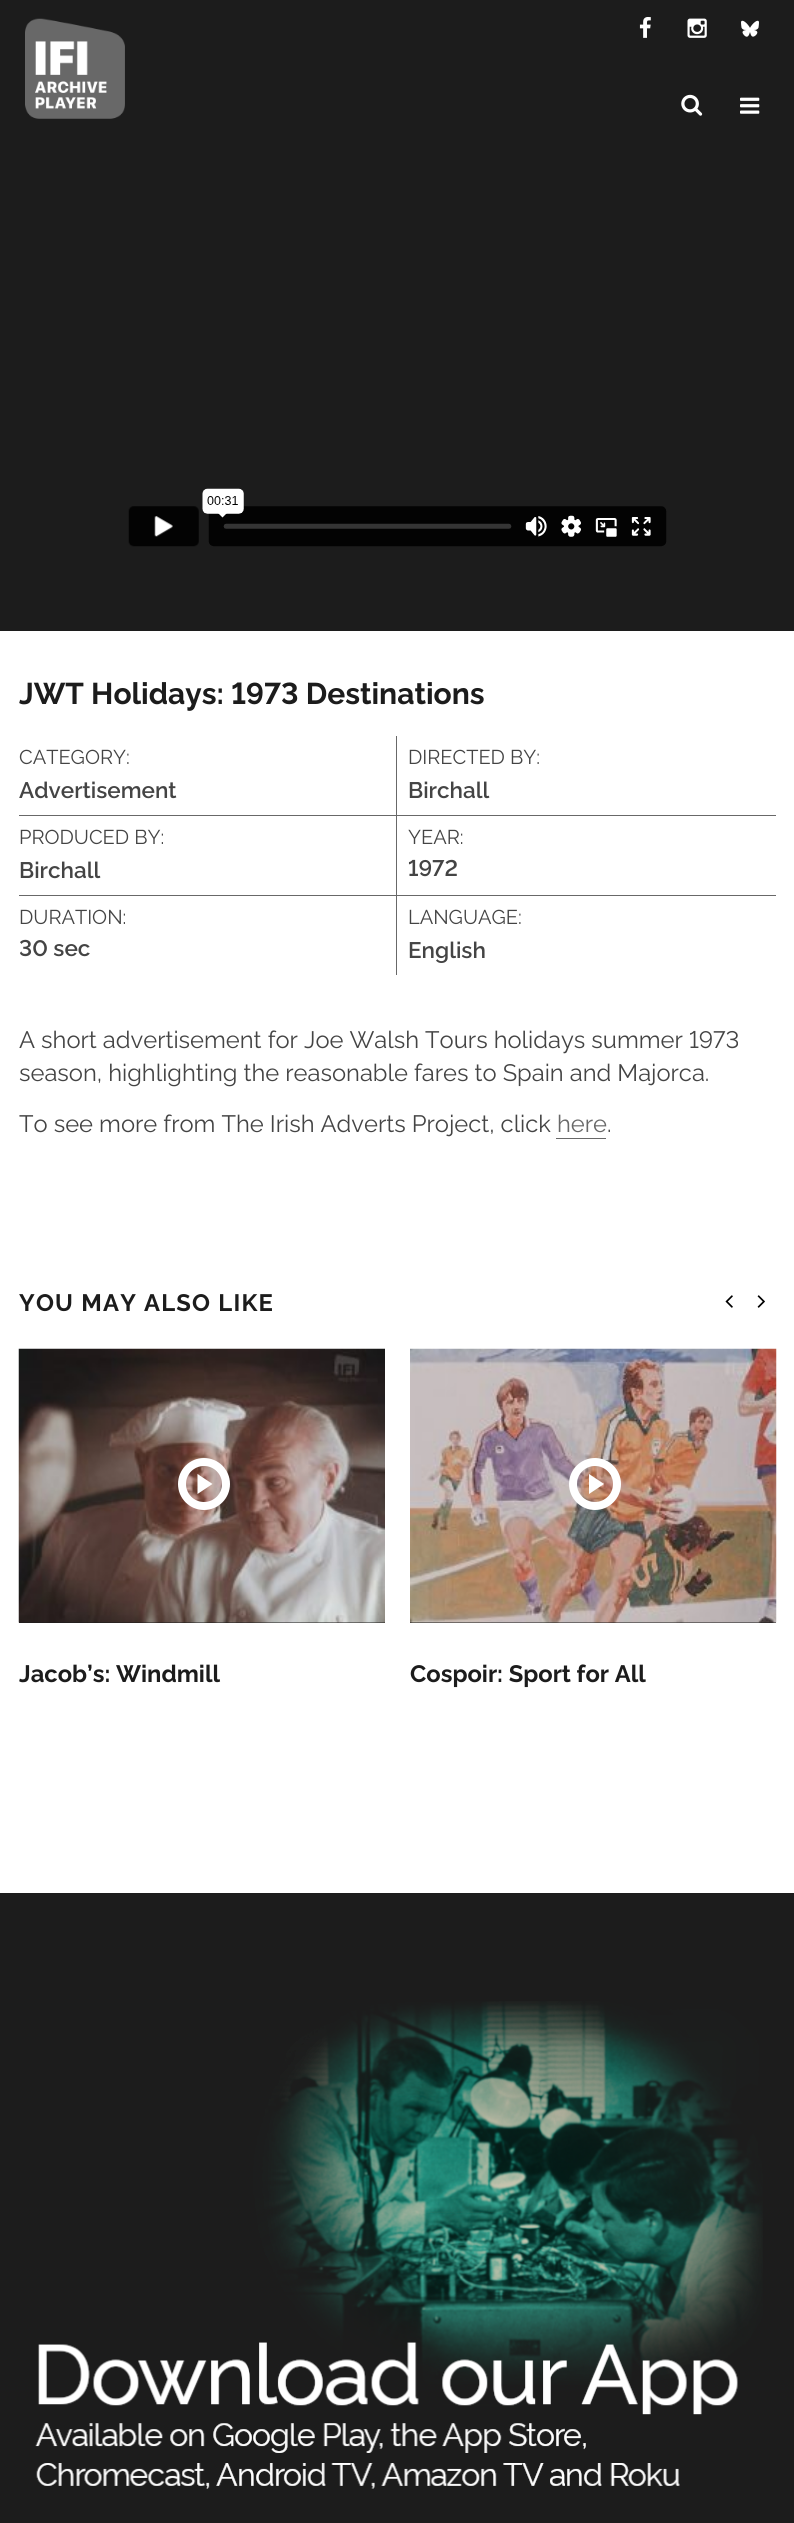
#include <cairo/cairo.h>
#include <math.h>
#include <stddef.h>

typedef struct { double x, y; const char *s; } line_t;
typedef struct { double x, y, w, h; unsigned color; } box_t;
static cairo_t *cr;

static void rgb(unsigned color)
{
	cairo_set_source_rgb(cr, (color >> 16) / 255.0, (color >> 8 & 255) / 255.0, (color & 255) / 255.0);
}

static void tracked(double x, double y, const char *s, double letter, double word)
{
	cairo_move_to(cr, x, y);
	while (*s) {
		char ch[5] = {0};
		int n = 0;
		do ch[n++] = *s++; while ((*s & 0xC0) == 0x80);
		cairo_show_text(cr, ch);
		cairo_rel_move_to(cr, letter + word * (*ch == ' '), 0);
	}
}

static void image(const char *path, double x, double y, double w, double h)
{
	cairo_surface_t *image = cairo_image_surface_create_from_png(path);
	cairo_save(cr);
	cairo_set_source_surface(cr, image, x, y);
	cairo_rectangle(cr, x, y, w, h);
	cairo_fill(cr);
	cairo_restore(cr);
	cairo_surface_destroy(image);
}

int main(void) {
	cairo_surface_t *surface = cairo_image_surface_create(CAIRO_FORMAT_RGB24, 794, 2523);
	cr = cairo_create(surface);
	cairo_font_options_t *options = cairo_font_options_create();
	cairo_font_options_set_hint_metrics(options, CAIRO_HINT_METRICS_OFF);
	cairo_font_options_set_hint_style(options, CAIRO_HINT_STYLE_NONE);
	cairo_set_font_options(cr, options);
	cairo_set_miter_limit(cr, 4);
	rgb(0xffffff);
	cairo_paint(cr);
	rgb(0x1c1c1c);
	cairo_rectangle(cr, 0, 0, 794, 631);
	cairo_fill(cr);
	image("img/1.png", 25, 18, 100, 101);
	image("img/2.png", 639, 17, 12, 21);
	image("img/3.png", 687, 18, 20, 20);
	image("img/4.png", 741, 20, 18, 17);
	image("img/5.png", 681, 94, 22, 22);
	image("img/6.png", 740, 97, 20, 17);
	image("img/7.png", 128, 488, 539, 59);
	{
		static const box_t items[] = {
			{396, 736, 1, 239, 0x686868},
			{19, 815, 757, 1, 0x686868},
			{19, 895, 757, 1, 0x686868},
			{556, 1138, 50, 1, 0x686868},
		};
		for (size_t i = 0; i < sizeof items / sizeof *items; i++) {
			rgb(items[i].color);
			cairo_rectangle(cr, items[i].x, items[i].y, items[i].w, items[i].h);
			cairo_fill(cr);
		}
	}
	image("img/8.png", 725, 1295, 8, 13);
	image("img/9.png", 757, 1295, 8, 13);
	rgb(0x1c1c1c);
	cairo_rectangle(cr, 19, 1622, 366, 1);
	cairo_fill(cr);
	image("img/10.png", 18, 1348, 367, 275);
	cairo_arc(cr, 204, 1484, 22, 0, 2 * M_PI);
	rgb(0xffffff);
	cairo_set_line_width(cr, 8);
	cairo_stroke(cr);
	cairo_new_path(cr);
	cairo_move_to(cr, 197.5, 1494);
	cairo_line_to(cr, 197.5, 1474);
	cairo_line_to(cr, 212.5, 1484);
	cairo_close_path(cr);
	cairo_fill(cr);
	rgb(0x1c1c1c);
	cairo_rectangle(cr, 410, 1622, 366, 1);
	cairo_fill(cr);
	image("img/11.png", 410, 1348, 367, 275);
	cairo_arc(cr, 595, 1484, 22, 0, 2 * M_PI);
	rgb(0xffffff);
	cairo_stroke(cr);
	cairo_new_path(cr);
	cairo_move_to(cr, 589, 1494);
	cairo_line_to(cr, 589, 1474);
	cairo_line_to(cr, 604, 1484);
	cairo_close_path(cr);
	cairo_fill(cr);
	rgb(0x1c1c1c);
	cairo_rectangle(cr, 0, 1893, 794, 630);
	cairo_fill(cr);
	image("img/12.png", 35, 2001, 728, 488);
	cairo_select_font_face(cr, "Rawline", CAIRO_FONT_SLANT_NORMAL, CAIRO_FONT_WEIGHT_BOLD);
	cairo_set_font_size(cr, 30);
	cairo_move_to(cr, 19, 704);
	cairo_show_text(cr, "JWT Holidays: 1973 Destinations");
	cairo_select_font_face(cr, "Rawline", CAIRO_FONT_SLANT_NORMAL, CAIRO_FONT_WEIGHT_NORMAL);
	cairo_set_font_size(cr, 20);
	rgb(0x444444);
	cairo_move_to(cr, 19, 764);
	cairo_show_text(cr, "CATEGORY:");
	cairo_select_font_face(cr, "Rawline SemiBold", CAIRO_FONT_SLANT_NORMAL, CAIRO_FONT_WEIGHT_NORMAL);
	cairo_set_font_size(cr, 22.5);
	cairo_move_to(cr, 19, 798);
	cairo_show_text(cr, "Advertisement");
	cairo_select_font_face(cr, "Rawline", CAIRO_FONT_SLANT_NORMAL, CAIRO_FONT_WEIGHT_NORMAL);
	cairo_set_font_size(cr, 20);
	cairo_move_to(cr, 408, 764);
	cairo_show_text(cr, "DIRECTED BY:");
	cairo_select_font_face(cr, "Rawline SemiBold", CAIRO_FONT_SLANT_NORMAL, CAIRO_FONT_WEIGHT_NORMAL);
	cairo_set_font_size(cr, 22.5);
	cairo_move_to(cr, 408, 798);
	cairo_show_text(cr, "Birchall");
	cairo_select_font_face(cr, "Rawline", CAIRO_FONT_SLANT_NORMAL, CAIRO_FONT_WEIGHT_NORMAL);
	cairo_set_font_size(cr, 20);
	cairo_move_to(cr, 19, 844);
	cairo_show_text(cr, "PRODUCED BY:");
	cairo_select_font_face(cr, "Rawline SemiBold", CAIRO_FONT_SLANT_NORMAL, CAIRO_FONT_WEIGHT_NORMAL);
	cairo_set_font_size(cr, 22.5);
	cairo_move_to(cr, 19, 878);
	cairo_show_text(cr, "Birchall");
	cairo_select_font_face(cr, "Rawline", CAIRO_FONT_SLANT_NORMAL, CAIRO_FONT_WEIGHT_NORMAL);
	cairo_set_font_size(cr, 20);
	cairo_move_to(cr, 408, 844);
	cairo_show_text(cr, "YEAR:");
	cairo_select_font_face(cr, "Rawline SemiBold", CAIRO_FONT_SLANT_NORMAL, CAIRO_FONT_WEIGHT_NORMAL);
	cairo_set_font_size(cr, 22.5);
	cairo_move_to(cr, 408, 876);
	cairo_show_text(cr, "1972");
	cairo_select_font_face(cr, "Rawline", CAIRO_FONT_SLANT_NORMAL, CAIRO_FONT_WEIGHT_NORMAL);
	cairo_set_font_size(cr, 20);
	cairo_move_to(cr, 19, 924);
	cairo_show_text(cr, "DURATION:");
	cairo_select_font_face(cr, "Rawline SemiBold", CAIRO_FONT_SLANT_NORMAL, CAIRO_FONT_WEIGHT_NORMAL);
	cairo_set_font_size(cr, 22.5);
	cairo_move_to(cr, 19, 956);
	cairo_show_text(cr, "30 sec");
	cairo_select_font_face(cr, "Rawline", CAIRO_FONT_SLANT_NORMAL, CAIRO_FONT_WEIGHT_NORMAL);
	cairo_set_font_size(cr, 20);
	cairo_move_to(cr, 408, 924);
	cairo_show_text(cr, "LANGUAGE:");
	cairo_select_font_face(cr, "Rawline SemiBold", CAIRO_FONT_SLANT_NORMAL, CAIRO_FONT_WEIGHT_NORMAL);
	cairo_set_font_size(cr, 22.5);
	cairo_move_to(cr, 408, 958);
	cairo_show_text(cr, "English");
	cairo_select_font_face(cr, "Rawline", CAIRO_FONT_SLANT_NORMAL, CAIRO_FONT_WEIGHT_NORMAL);
	cairo_set_font_size(cr, 23.75);
	{
		static const line_t items[] = {
			{19, 1048, "A short advertisement for Joe Walsh Tours holidays summer 1973"},
			{19, 1081, "season, highlighting the reasonable fares to Spain and Majorca."},
			{19, 1132, "To see more from The Irish Adverts Project, click"},
		};
		for (size_t i = 0; i < sizeof items / sizeof *items; i++) {
			cairo_move_to(cr, items[i].x, items[i].y);
			cairo_show_text(cr, items[i].s);
		}
	}
	rgb(0x686868);
	cairo_move_to(cr, 557, 1132);
	cairo_show_text(cr, "here");
	rgb(0x444444);
	cairo_move_to(cr, 607, 1132);
	cairo_show_text(cr, ".");
	cairo_select_font_face(cr, "Rawline", CAIRO_FONT_SLANT_NORMAL, CAIRO_FONT_WEIGHT_BOLD);
	rgb(0x1c1c1c);
	tracked(19, 1311, "YOU MAY ALSO LIKE", 1.25, 0);
	cairo_move_to(cr, 19, 1682);
	cairo_show_text(cr, "Jacob’s: Windmill");
	cairo_move_to(cr, 410, 1682);
	cairo_show_text(cr, "Cospoir: Sport for All");
	cairo_surface_write_to_png(surface, "page.png");
	cairo_font_options_destroy(options);
	cairo_destroy(cr);
	cairo_surface_destroy(surface);
	return 0;
}
